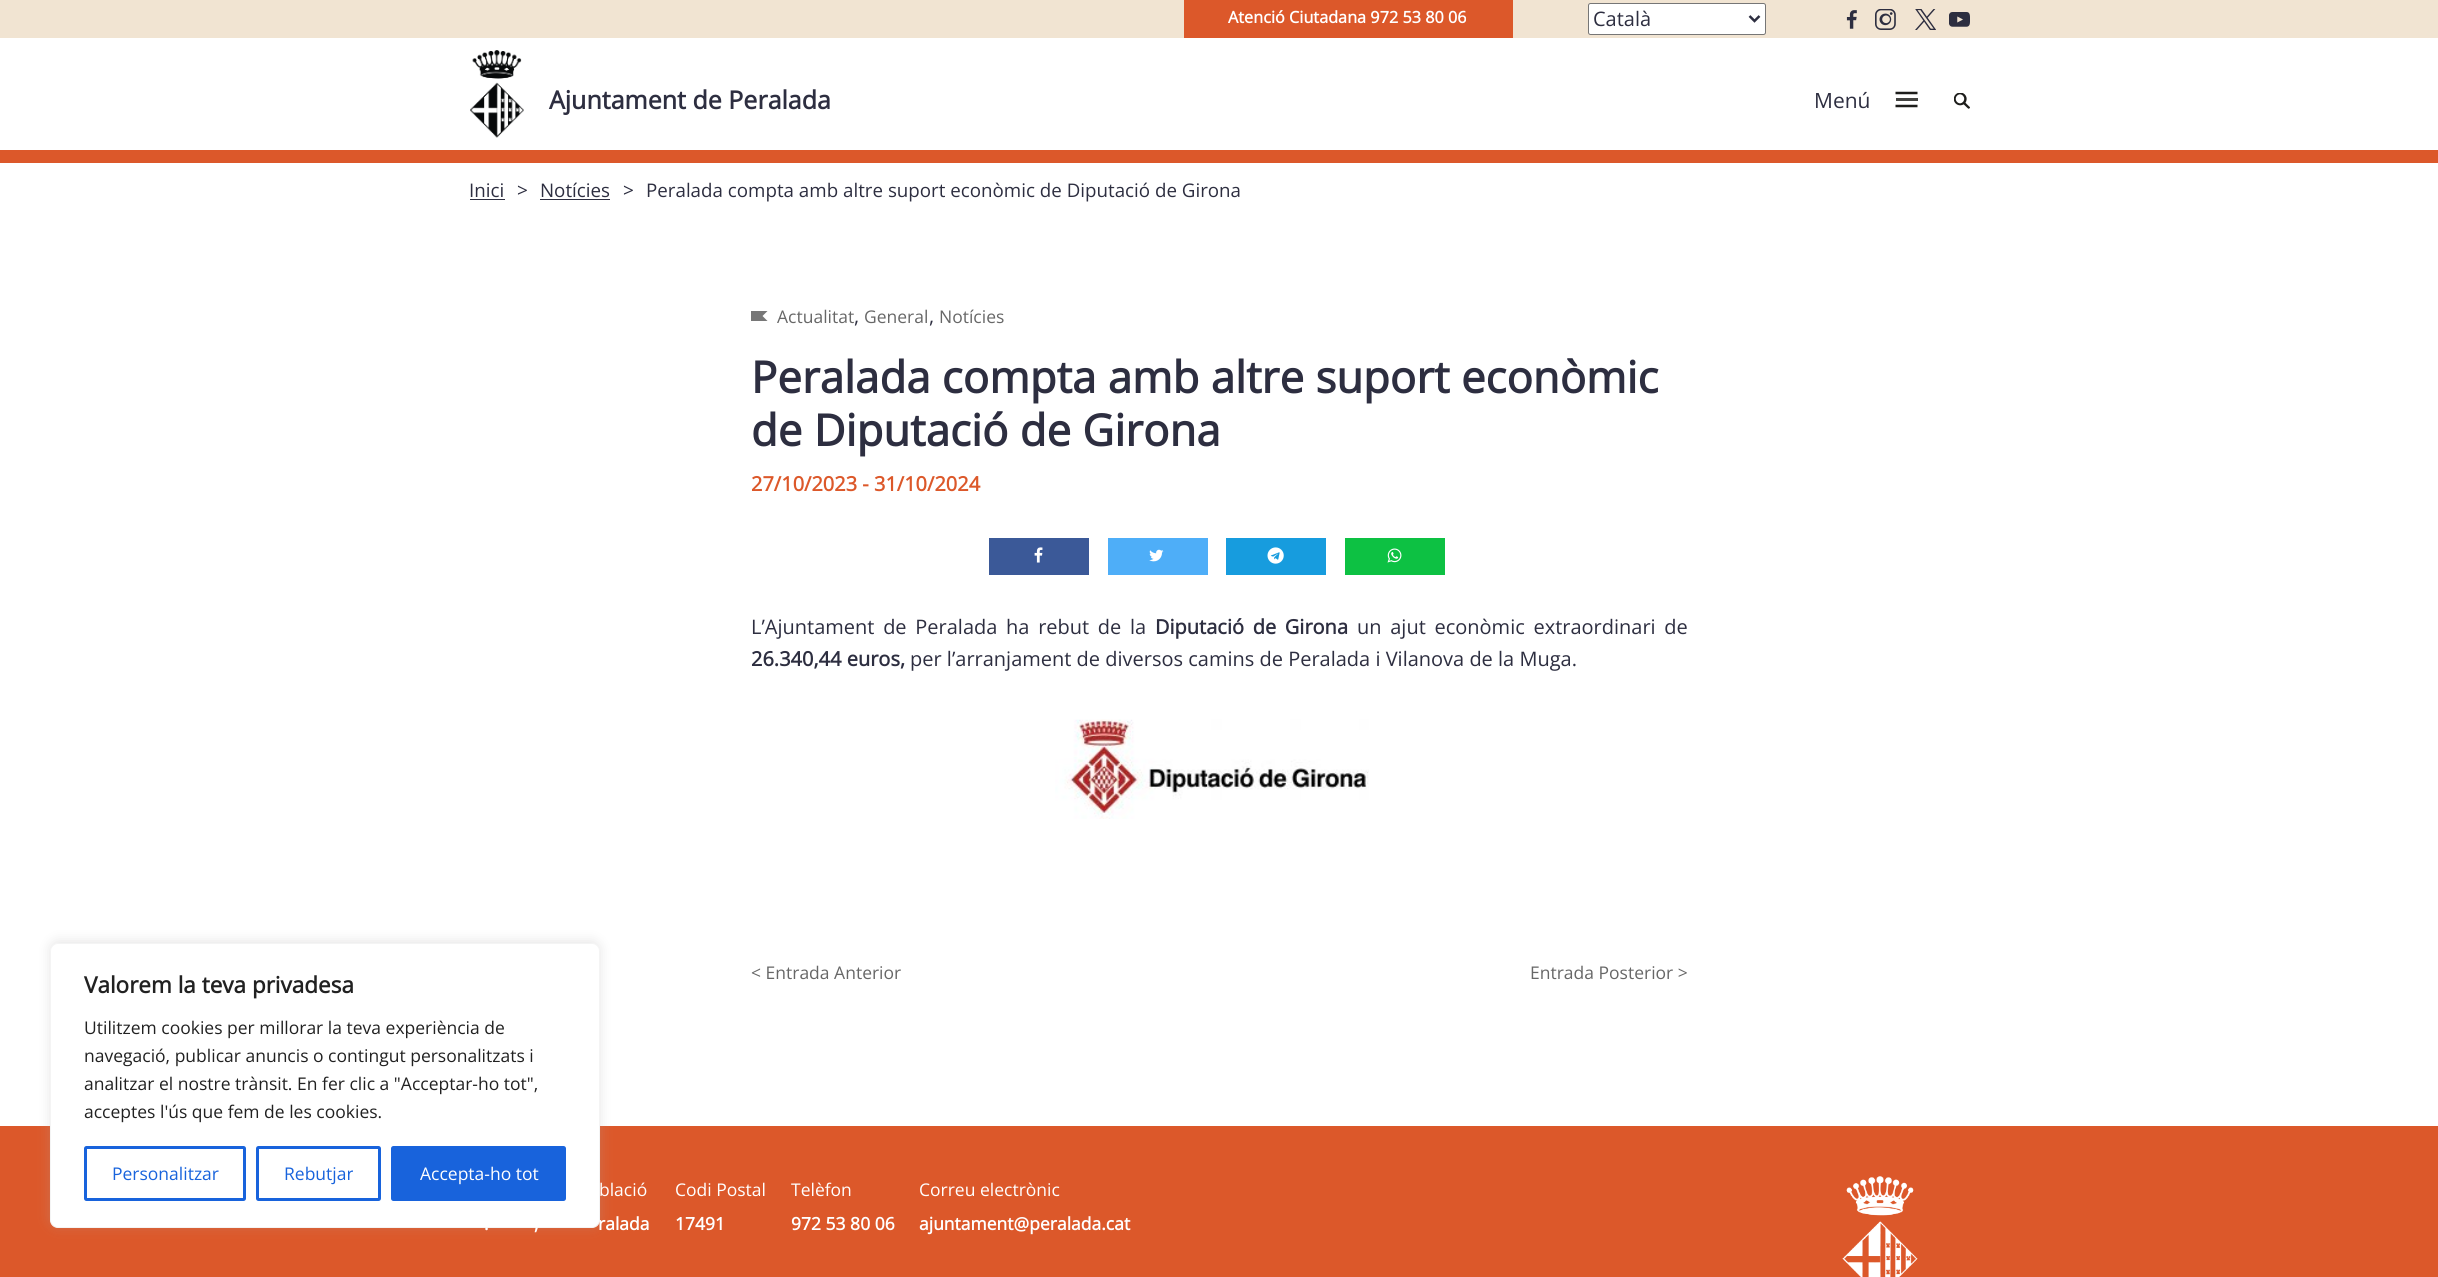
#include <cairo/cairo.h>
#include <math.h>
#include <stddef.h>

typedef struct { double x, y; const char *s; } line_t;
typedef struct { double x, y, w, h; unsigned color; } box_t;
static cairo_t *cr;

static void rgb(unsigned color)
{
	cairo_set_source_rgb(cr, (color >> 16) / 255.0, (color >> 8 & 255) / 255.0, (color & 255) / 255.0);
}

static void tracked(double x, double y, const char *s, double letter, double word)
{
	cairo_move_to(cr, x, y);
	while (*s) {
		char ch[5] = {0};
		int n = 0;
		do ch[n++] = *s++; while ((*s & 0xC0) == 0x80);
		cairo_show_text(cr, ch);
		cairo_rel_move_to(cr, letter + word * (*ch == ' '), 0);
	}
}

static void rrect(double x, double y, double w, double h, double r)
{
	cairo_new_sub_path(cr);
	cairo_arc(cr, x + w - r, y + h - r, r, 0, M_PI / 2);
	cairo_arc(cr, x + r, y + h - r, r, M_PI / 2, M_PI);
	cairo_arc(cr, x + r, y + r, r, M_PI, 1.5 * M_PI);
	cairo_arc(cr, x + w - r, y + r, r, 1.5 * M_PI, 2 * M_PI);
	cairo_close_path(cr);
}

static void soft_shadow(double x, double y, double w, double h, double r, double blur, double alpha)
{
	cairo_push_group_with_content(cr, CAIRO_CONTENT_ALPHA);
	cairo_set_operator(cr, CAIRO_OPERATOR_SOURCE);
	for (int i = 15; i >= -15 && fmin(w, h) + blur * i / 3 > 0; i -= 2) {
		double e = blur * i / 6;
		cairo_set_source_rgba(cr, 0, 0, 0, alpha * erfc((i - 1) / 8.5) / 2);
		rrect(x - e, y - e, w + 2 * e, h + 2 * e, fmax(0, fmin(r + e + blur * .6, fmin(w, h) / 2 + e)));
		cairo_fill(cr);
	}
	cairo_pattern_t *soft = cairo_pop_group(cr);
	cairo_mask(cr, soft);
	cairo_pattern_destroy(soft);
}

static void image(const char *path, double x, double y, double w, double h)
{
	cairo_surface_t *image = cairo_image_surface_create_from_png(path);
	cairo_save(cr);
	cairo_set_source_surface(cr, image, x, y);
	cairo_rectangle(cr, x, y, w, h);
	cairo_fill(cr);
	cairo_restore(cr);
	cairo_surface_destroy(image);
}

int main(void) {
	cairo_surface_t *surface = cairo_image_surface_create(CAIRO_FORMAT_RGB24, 2438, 1277);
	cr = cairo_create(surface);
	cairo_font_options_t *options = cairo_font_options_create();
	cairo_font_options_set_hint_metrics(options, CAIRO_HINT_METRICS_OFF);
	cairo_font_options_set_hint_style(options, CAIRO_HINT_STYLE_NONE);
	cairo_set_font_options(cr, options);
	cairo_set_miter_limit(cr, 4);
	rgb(0xffffff);
	cairo_paint(cr);
	{
		static const box_t items[] = {
			{0, 150, 2438, 13, 0xdc582a},
			{0, 0, 2438, 38, 0xf1e4d2},
			{1184, 0, 329, 38, 0xdc582a},
		};
		for (size_t i = 0; i < sizeof items / sizeof *items; i++) {
			rgb(items[i].color);
			cairo_rectangle(cr, items[i].x, items[i].y, items[i].w, items[i].h);
			cairo_fill(cr);
		}
	}
	rgb(0xffffff);
	rrect(1588.5, 3.5, 177, 31, 2);
	cairo_fill_preserve(cr);
	rgb(0x767676);
	cairo_set_line_width(cr, 1);
	cairo_stroke(cr);
	cairo_new_path(cr);
	cairo_move_to(cr, 1749.5, 16);
	cairo_line_to(cr, 1754.5, 21);
	cairo_line_to(cr, 1759.5, 16);
	rgb(0x2d2e40);
	cairo_set_line_width(cr, 2.5);
	cairo_stroke(cr);
	image("img/1.png", 1846, 10, 11, 19);
	image("img/2.png", 1875, 9, 21, 21);
	image("img/3.png", 1915, 9, 21, 21);
	image("img/4.png", 1949, 12, 21, 15);
	image("img/5.png", 470, 50, 54, 88);
	cairo_new_path(cr);
	cairo_move_to(cr, 1895.5, 93);
	cairo_line_to(cr, 1917.5, 93);
	rgb(0x1d1d1b);
	cairo_stroke(cr);
	rgb(0x434341);
	cairo_rectangle(cr, 1896, 98, 22, 3);
	cairo_fill(cr);
	cairo_new_path(cr);
	cairo_move_to(cr, 1895.5, 106);
	cairo_line_to(cr, 1917.5, 106);
	rgb(0x1d1d1b);
	cairo_stroke(cr);
	image("img/6.png", 1954, 93, 16, 16);
	rgb(0x2d2e40);
	cairo_rectangle(cr, 470, 199, 35, 1);
	cairo_fill(cr);
	cairo_rectangle(cr, 540, 199, 70, 1);
	cairo_fill(cr);
	rgb(0x777777);
	cairo_set_fill_rule(cr, CAIRO_FILL_RULE_EVEN_ODD);
	cairo_new_path(cr);
	cairo_move_to(cr, 751, 321);
	cairo_line_to(cr, 751, 311);
	cairo_line_to(cr, 767.5, 311);
	cairo_line_to(cr, 762.5, 316);
	cairo_line_to(cr, 767.5, 321);
	cairo_close_path(cr);
	cairo_fill(cr);
	rgb(0x3b5998);
	cairo_rectangle(cr, 989, 538, 100, 37);
	cairo_fill(cr);
	image("img/7.png", 1034, 547, 9, 16);
	rgb(0x4eaef8);
	cairo_rectangle(cr, 1108, 538, 100, 37);
	cairo_fill(cr);
	image("img/8.png", 1149, 549, 15, 13);
	rgb(0x179cde);
	cairo_rectangle(cr, 1226, 538, 100, 37);
	cairo_fill(cr);
	image("img/9.png", 1267, 547, 17, 17);
	rgb(0x0dc143);
	cairo_rectangle(cr, 1345, 538, 100, 37);
	cairo_fill(cr);
	image("img/10.png", 1387, 548, 15, 15);
	image("img/11.png", 1055, 719, 314, 100);
	rgb(0xdc582a);
	cairo_rectangle(cr, 0, 1126, 2438, 151);
	cairo_fill(cr);
	rgb(0xacabab);
	soft_shadow(50, 941, 550, 285, 8, 6, 0.3);
	rgb(0xffffff);
	rrect(50.5, 943.5, 549, 284, 7.5);
	cairo_fill_preserve(cr);
	rgb(0xf4f4f4);
	cairo_set_line_width(cr, 1);
	cairo_stroke(cr);
	rrect(85.5, 1147.5, 159, 52, 1);
	rgb(0x1863dc);
	cairo_set_line_width(cr, 3);
	cairo_stroke(cr);
	rrect(257.5, 1147.5, 122, 52, 1);
	cairo_stroke(cr);
	rrect(392.5, 1147.5, 172, 52, 1);
	cairo_fill_preserve(cr);
	cairo_stroke(cr);
	image("img/12.png", 1842, 1176, 76, 101);
	cairo_select_font_face(cr, "Open Sans", CAIRO_FONT_SLANT_NORMAL, CAIRO_FONT_WEIGHT_BOLD);
	cairo_set_font_size(cr, 16.25);
	rgb(0xffffff);
	cairo_move_to(cr, 1228, 23);
	cairo_show_text(cr, "Atenció Ciutadana 972 53 80 06");
	cairo_select_font_face(cr, "Open Sans", CAIRO_FONT_SLANT_NORMAL, CAIRO_FONT_WEIGHT_NORMAL);
	cairo_set_font_size(cr, 20);
	rgb(0x2d2e40);
	cairo_move_to(cr, 1593, 26);
	cairo_show_text(cr, "Català");
	cairo_select_font_face(cr, "Open Sans", CAIRO_FONT_SLANT_NORMAL, CAIRO_FONT_WEIGHT_BOLD);
	cairo_set_font_size(cr, 25);
	cairo_move_to(cr, 549, 109);
	cairo_show_text(cr, "Ajuntament de Peralada");
	cairo_select_font_face(cr, "Open Sans", CAIRO_FONT_SLANT_NORMAL, CAIRO_FONT_WEIGHT_NORMAL);
	cairo_set_font_size(cr, 21);
	cairo_move_to(cr, 1814, 108);
	cairo_show_text(cr, "Menú");
	cairo_set_font_size(cr, 18.75);
	cairo_move_to(cr, 469, 197);
	cairo_show_text(cr, "Inici");
	cairo_set_font_size(cr, 19);
	cairo_move_to(cr, 517, 197);
	cairo_show_text(cr, ">");
	cairo_set_font_size(cr, 18.75);
	cairo_move_to(cr, 540, 197);
	cairo_show_text(cr, "Notícies");
	cairo_set_font_size(cr, 19);
	cairo_move_to(cr, 623, 197);
	cairo_show_text(cr, ">");
	cairo_set_font_size(cr, 18.75);
	cairo_move_to(cr, 646, 197);
	cairo_show_text(cr, "Peralada compta amb altre suport econòmic de Diputació de Girona");
	cairo_set_font_size(cr, 17.5);
	rgb(0x676767);
	cairo_move_to(cr, 777, 323);
	cairo_show_text(cr, "Actualitat");
	cairo_set_font_size(cr, 20);
	rgb(0x2d2e40);
	cairo_move_to(cr, 854, 323);
	cairo_show_text(cr, ",");
	cairo_set_font_size(cr, 17.5);
	rgb(0x676767);
	cairo_move_to(cr, 864, 323);
	cairo_show_text(cr, "General");
	cairo_set_font_size(cr, 20);
	rgb(0x2d2e40);
	cairo_move_to(cr, 929, 323);
	cairo_show_text(cr, ",");
	cairo_set_font_size(cr, 17.5);
	rgb(0x676767);
	cairo_move_to(cr, 939, 323);
	cairo_show_text(cr, "Notícies");
	cairo_select_font_face(cr, "Open Sans", CAIRO_FONT_SLANT_NORMAL, CAIRO_FONT_WEIGHT_BOLD);
	cairo_set_font_size(cr, 43.75);
	rgb(0x2d2e40);
	cairo_move_to(cr, 751, 393);
	cairo_show_text(cr, "Peralada compta amb altre suport econòmic");
	cairo_move_to(cr, 751, 446);
	cairo_show_text(cr, "de Diputació de Girona");
	cairo_set_font_size(cr, 20);
	rgb(0xdc582a);
	cairo_move_to(cr, 751, 491);
	cairo_show_text(cr, "27/10/2023 - 31/10/2024");
	cairo_select_font_face(cr, "Open Sans", CAIRO_FONT_SLANT_NORMAL, CAIRO_FONT_WEIGHT_NORMAL);
	rgb(0x2d2e40);
	tracked(751, 634, "L’Ajuntament de Peralada ha rebut de la", 0, 3.5);
	cairo_select_font_face(cr, "Open Sans", CAIRO_FONT_SLANT_NORMAL, CAIRO_FONT_WEIGHT_BOLD);
	tracked(1155, 634, "Diputació de Girona", 0, 3.5);
	cairo_select_font_face(cr, "Open Sans", CAIRO_FONT_SLANT_NORMAL, CAIRO_FONT_WEIGHT_NORMAL);
	tracked(1357, 634, "un ajut econòmic extraordinari de", 0, 3.5);
	cairo_select_font_face(cr, "Open Sans", CAIRO_FONT_SLANT_NORMAL, CAIRO_FONT_WEIGHT_BOLD);
	cairo_move_to(cr, 751, 666);
	cairo_show_text(cr, "26.340,44 euros,");
	cairo_select_font_face(cr, "Open Sans", CAIRO_FONT_SLANT_NORMAL, CAIRO_FONT_WEIGHT_NORMAL);
	cairo_move_to(cr, 910, 666);
	cairo_show_text(cr, "per l’arranjament de diversos camins de Peralada i Vilanova de la Muga.");
	cairo_set_font_size(cr, 17.5);
	rgb(0x676767);
	cairo_move_to(cr, 751, 979);
	cairo_show_text(cr, "< Entrada Anterior");
	cairo_move_to(cr, 1530, 979);
	cairo_show_text(cr, "Entrada Posterior >");
	cairo_select_font_face(cr, "Open Sans", CAIRO_FONT_SLANT_NORMAL, CAIRO_FONT_WEIGHT_BOLD);
	cairo_set_font_size(cr, 22.5);
	rgb(0x212121);
	cairo_move_to(cr, 84, 993);
	cairo_show_text(cr, "Valorem la teva privadesa");
	cairo_select_font_face(cr, "Open Sans", CAIRO_FONT_SLANT_NORMAL, CAIRO_FONT_WEIGHT_NORMAL);
	cairo_set_font_size(cr, 17.5);
	{
		static const line_t items[] = {
			{84, 1034, "Utilitzem cookies per millorar la teva experiència de"},
			{84, 1062, "navegació, publicar anuncis o contingut personalitzats i"},
			{84, 1090, "analitzar el nostre trànsit. En fer clic a \"Acceptar-ho tot\","},
			{84, 1118, "acceptes l'ús que fem de les cookies."},
		};
		for (size_t i = 0; i < sizeof items / sizeof *items; i++) {
			cairo_move_to(cr, items[i].x, items[i].y);
			cairo_show_text(cr, items[i].s);
		}
	}
	rgb(0x1863dc);
	cairo_move_to(cr, 112, 1180);
	cairo_show_text(cr, "Personalitzar");
	cairo_move_to(cr, 284, 1180);
	cairo_show_text(cr, "Rebutjar");
	rgb(0xffffff);
	cairo_move_to(cr, 420, 1180);
	cairo_show_text(cr, "Accepta-ho tot");
	cairo_select_font_face(cr, "Open Sans", CAIRO_FONT_SLANT_NORMAL, CAIRO_FONT_WEIGHT_BOLD);
	cairo_move_to(cr, 484, 1230);
	cairo_show_text(cr, ".");
	cairo_move_to(cr, 534, 1230);
	cairo_show_text(cr, ",");
	cairo_select_font_face(cr, "Open Sans", CAIRO_FONT_SLANT_NORMAL, CAIRO_FONT_WEIGHT_NORMAL);
	cairo_move_to(cr, 599, 1196);
	cairo_show_text(cr, "blació");
	cairo_select_font_face(cr, "Open Sans", CAIRO_FONT_SLANT_NORMAL, CAIRO_FONT_WEIGHT_BOLD);
	cairo_move_to(cr, 598, 1230);
	cairo_show_text(cr, "ralada");
	cairo_select_font_face(cr, "Open Sans", CAIRO_FONT_SLANT_NORMAL, CAIRO_FONT_WEIGHT_NORMAL);
	cairo_move_to(cr, 675, 1196);
	cairo_show_text(cr, "Codi Postal");
	cairo_select_font_face(cr, "Open Sans", CAIRO_FONT_SLANT_NORMAL, CAIRO_FONT_WEIGHT_BOLD);
	cairo_move_to(cr, 675, 1230);
	cairo_show_text(cr, "17491");
	cairo_select_font_face(cr, "Open Sans", CAIRO_FONT_SLANT_NORMAL, CAIRO_FONT_WEIGHT_NORMAL);
	cairo_move_to(cr, 791, 1196);
	cairo_show_text(cr, "Telèfon");
	cairo_select_font_face(cr, "Open Sans", CAIRO_FONT_SLANT_NORMAL, CAIRO_FONT_WEIGHT_BOLD);
	cairo_move_to(cr, 791, 1230);
	cairo_show_text(cr, "972 53 80 06");
	cairo_select_font_face(cr, "Open Sans", CAIRO_FONT_SLANT_NORMAL, CAIRO_FONT_WEIGHT_NORMAL);
	cairo_move_to(cr, 919, 1196);
	cairo_show_text(cr, "Correu electrònic");
	cairo_select_font_face(cr, "Open Sans", CAIRO_FONT_SLANT_NORMAL, CAIRO_FONT_WEIGHT_BOLD);
	cairo_move_to(cr, 919, 1230);
	cairo_show_text(cr, "ajuntament@peralada.cat");
	cairo_surface_write_to_png(surface, "page.png");
	cairo_font_options_destroy(options);
	cairo_destroy(cr);
	cairo_surface_destroy(surface);
	return 0;
}
